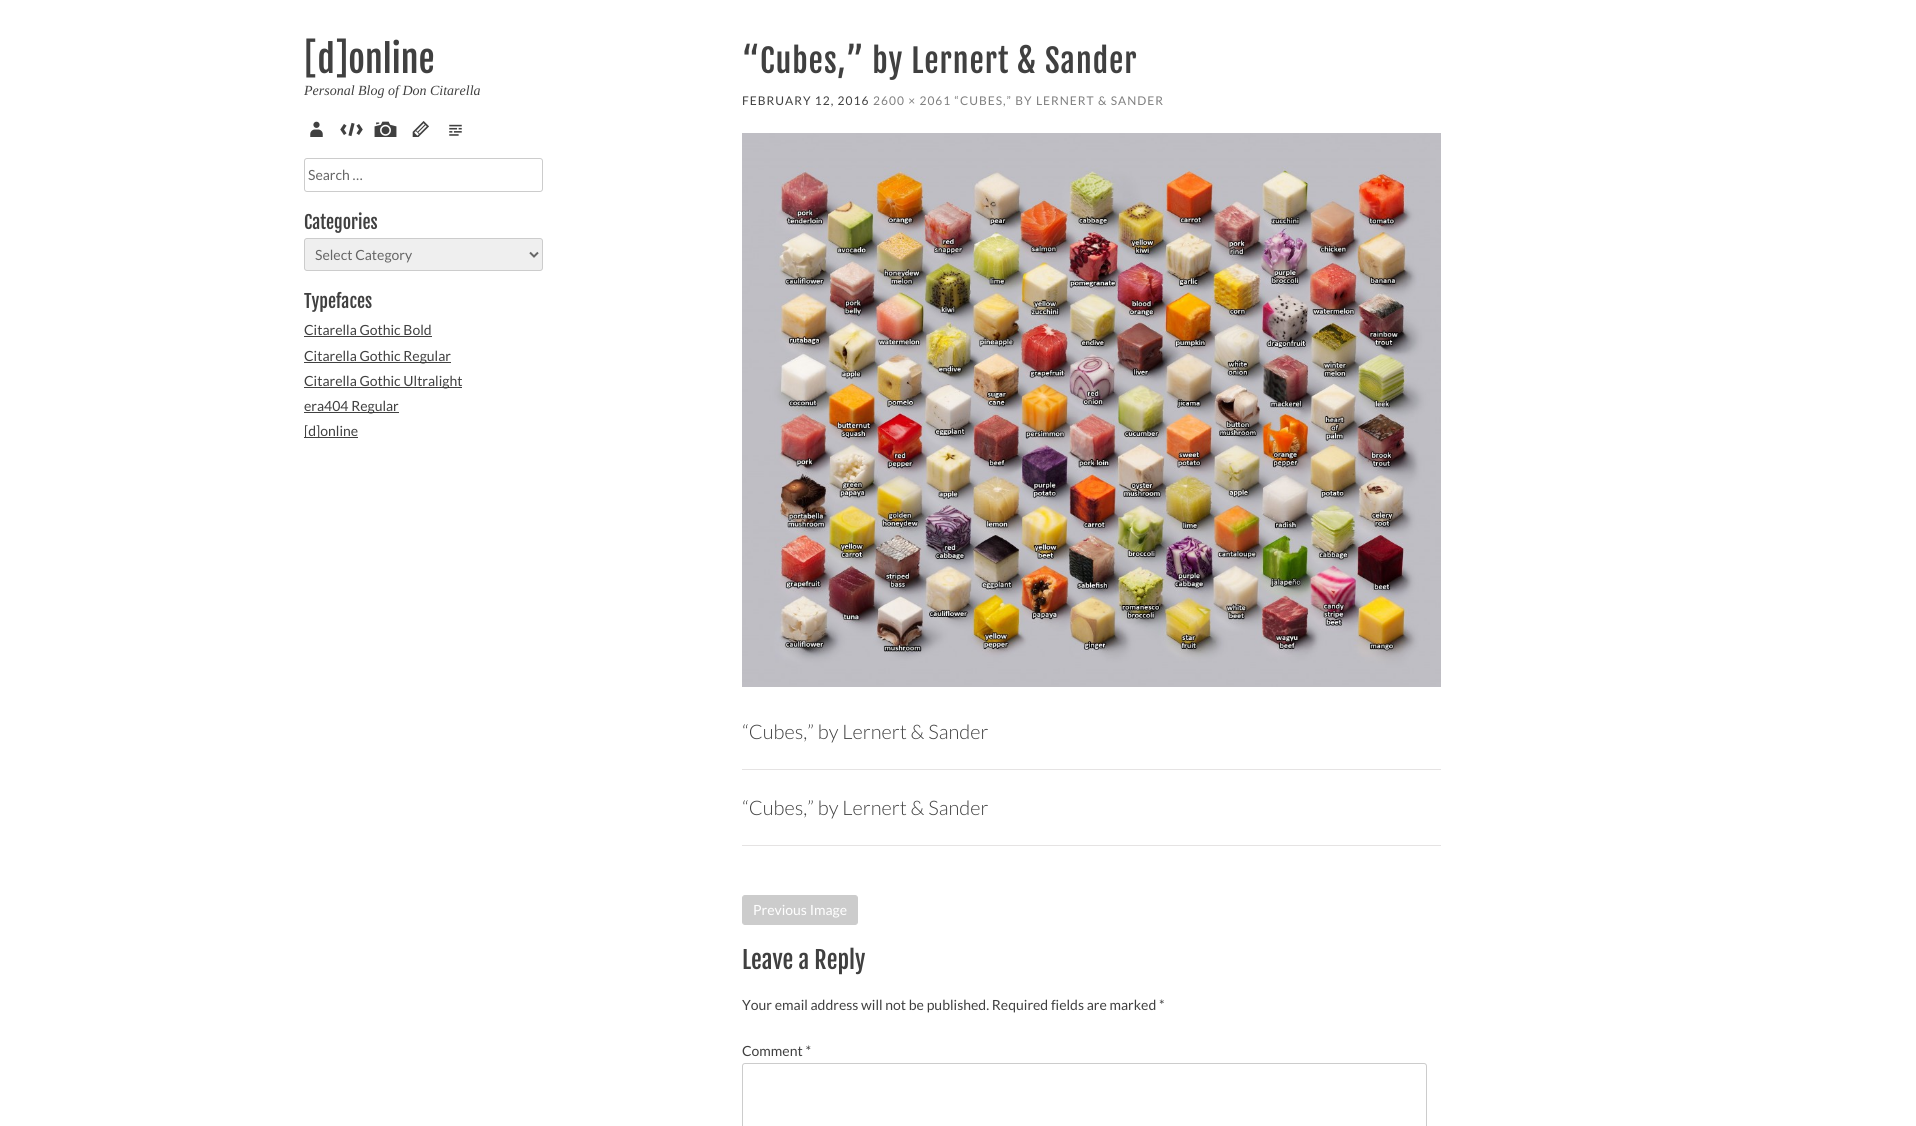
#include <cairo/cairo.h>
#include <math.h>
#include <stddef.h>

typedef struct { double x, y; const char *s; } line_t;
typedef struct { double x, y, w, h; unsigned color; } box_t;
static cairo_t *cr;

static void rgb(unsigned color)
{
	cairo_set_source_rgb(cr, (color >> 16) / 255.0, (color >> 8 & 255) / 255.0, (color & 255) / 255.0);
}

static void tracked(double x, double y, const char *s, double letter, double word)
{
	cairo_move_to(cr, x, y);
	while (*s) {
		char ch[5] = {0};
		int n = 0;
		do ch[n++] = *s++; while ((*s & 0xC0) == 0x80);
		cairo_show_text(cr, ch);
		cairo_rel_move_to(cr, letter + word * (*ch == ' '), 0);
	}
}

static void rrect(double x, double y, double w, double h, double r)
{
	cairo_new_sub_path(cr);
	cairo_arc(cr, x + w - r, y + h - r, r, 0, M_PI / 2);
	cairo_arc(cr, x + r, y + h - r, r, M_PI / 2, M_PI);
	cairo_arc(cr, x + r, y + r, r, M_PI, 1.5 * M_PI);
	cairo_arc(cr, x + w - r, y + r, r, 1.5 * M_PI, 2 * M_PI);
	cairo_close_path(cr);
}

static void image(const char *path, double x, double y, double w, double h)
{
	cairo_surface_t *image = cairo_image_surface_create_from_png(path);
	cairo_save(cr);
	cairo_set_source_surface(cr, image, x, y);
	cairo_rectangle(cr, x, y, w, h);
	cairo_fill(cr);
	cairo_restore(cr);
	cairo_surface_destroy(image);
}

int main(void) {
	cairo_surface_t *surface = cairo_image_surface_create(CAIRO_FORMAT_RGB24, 1916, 1126);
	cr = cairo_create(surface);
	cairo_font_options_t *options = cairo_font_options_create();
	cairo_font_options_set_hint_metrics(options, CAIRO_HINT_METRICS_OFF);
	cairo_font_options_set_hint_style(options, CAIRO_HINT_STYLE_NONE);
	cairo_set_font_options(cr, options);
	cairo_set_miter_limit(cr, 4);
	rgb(0xffffff);
	cairo_paint(cr);
	image("img/1.png", 310, 121, 13, 16);
	image("img/2.png", 340, 122, 23, 15);
	image("img/3.png", 374, 121, 23, 16);
	image("img/4.png", 412, 121, 17, 16);
	image("img/5.png", 449, 124, 13, 12);
	rrect(304.5, 158.5, 238, 33, 2.5);
	rgb(0xcccccc);
	cairo_set_line_width(cr, 1);
	cairo_stroke(cr);
	rgb(0xefefef);
	rrect(304.5, 238.5, 238, 32, 2.5);
	cairo_fill_preserve(cr);
	rgb(0xcccccc);
	cairo_stroke(cr);
	cairo_new_path(cr);
	cairo_move_to(cr, 530, 252.5);
	cairo_line_to(cr, 534, 256.5);
	cairo_line_to(cr, 538, 252.5);
	rgb(0x666666);
	cairo_set_line_width(cr, 2);
	cairo_stroke(cr);
	{
		static const box_t items[] = {
			{304, 336, 128, 1, 0x404040},
			{304, 362, 147, 1, 0x404040},
			{304, 387, 158, 1, 0x404040},
			{304, 412, 95, 1, 0x404040},
			{304, 437, 54, 1, 0x404040},
		};
		for (size_t i = 0; i < sizeof items / sizeof *items; i++) {
			rgb(items[i].color);
			cairo_rectangle(cr, items[i].x, items[i].y, items[i].w, items[i].h);
			cairo_fill(cr);
		}
	}
	image("img/6.png", 742, 133, 699, 554);
	rgb(0xe5e3e3);
	cairo_rectangle(cr, 742, 769, 699, 1);
	cairo_fill(cr);
	cairo_rectangle(cr, 742, 845, 699, 1);
	cairo_fill(cr);
	rgb(0xcccccc);
	rrect(742.5, 895.5, 115, 29, 2.5);
	cairo_fill_preserve(cr);
	cairo_set_line_width(cr, 1);
	cairo_stroke(cr);
	rrect(742.5, 1063.5, 684, 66, 2.5);
	cairo_stroke(cr);
	cairo_select_font_face(cr, "Fjalla One", CAIRO_FONT_SLANT_NORMAL, CAIRO_FONT_WEIGHT_NORMAL);
	cairo_set_font_size(cr, 36);
	rgb(0x404040);
	cairo_move_to(cr, 304, 73);
	cairo_show_text(cr, "[d]online");
	cairo_select_font_face(cr, "Liberation Serif", CAIRO_FONT_SLANT_ITALIC, CAIRO_FONT_WEIGHT_NORMAL);
	cairo_set_font_size(cr, 14);
	cairo_move_to(cr, 304, 95);
	cairo_show_text(cr, "Personal Blog of Don Citarella");
	cairo_select_font_face(cr, "Lato", CAIRO_FONT_SLANT_NORMAL, CAIRO_FONT_WEIGHT_NORMAL);
	rgb(0x666666);
	cairo_move_to(cr, 308, 180);
	cairo_show_text(cr, "Search …");
	cairo_select_font_face(cr, "Fjalla One", CAIRO_FONT_SLANT_NORMAL, CAIRO_FONT_WEIGHT_NORMAL);
	cairo_set_font_size(cr, 18);
	rgb(0x404040);
	cairo_move_to(cr, 304, 229);
	cairo_show_text(cr, "Categories");
	cairo_select_font_face(cr, "Lato", CAIRO_FONT_SLANT_NORMAL, CAIRO_FONT_WEIGHT_NORMAL);
	cairo_set_font_size(cr, 14);
	rgb(0x666666);
	cairo_move_to(cr, 315, 260);
	cairo_show_text(cr, "Select Category");
	cairo_select_font_face(cr, "Fjalla One", CAIRO_FONT_SLANT_NORMAL, CAIRO_FONT_WEIGHT_NORMAL);
	cairo_set_font_size(cr, 18);
	rgb(0x404040);
	cairo_move_to(cr, 304, 308);
	cairo_show_text(cr, "Typefaces");
	cairo_select_font_face(cr, "Lato", CAIRO_FONT_SLANT_NORMAL, CAIRO_FONT_WEIGHT_NORMAL);
	cairo_set_font_size(cr, 14);
	{
		static const line_t items[] = {
			{304, 335, "Citarella Gothic Bold"},
			{304, 361, "Citarella Gothic Regular"},
			{304, 386, "Citarella Gothic Ultralight"},
			{304, 411, "era404 Regular"},
			{304, 436, "[d]online"},
		};
		for (size_t i = 0; i < sizeof items / sizeof *items; i++) {
			cairo_move_to(cr, items[i].x, items[i].y);
			cairo_show_text(cr, items[i].s);
		}
	}
	cairo_select_font_face(cr, "Fjalla One", CAIRO_FONT_SLANT_NORMAL, CAIRO_FONT_WEIGHT_NORMAL);
	cairo_set_font_size(cr, 32);
	tracked(742, 73, "“Cubes,” by Lernert & Sander", 1, 0);
	cairo_select_font_face(cr, "Lato", CAIRO_FONT_SLANT_NORMAL, CAIRO_FONT_WEIGHT_NORMAL);
	cairo_set_font_size(cr, 12);
	tracked(742, 105, "FEBRUARY 12, 2016", 1, 0);
	rgb(0x7f7f7f);
	tracked(873, 105, "2600 × 2061 “CUBES,” BY LERNERT & SANDER", 1, 0);
	cairo_select_font_face(cr, "Lato Light", CAIRO_FONT_SLANT_NORMAL, CAIRO_FONT_WEIGHT_NORMAL);
	cairo_set_font_size(cr, 20);
	rgb(0x404040);
	cairo_move_to(cr, 742, 739);
	cairo_show_text(cr, "“Cubes,” by Lernert & Sander");
	cairo_move_to(cr, 742, 815);
	cairo_show_text(cr, "“Cubes,” by Lernert & Sander");
	cairo_select_font_face(cr, "Lato", CAIRO_FONT_SLANT_NORMAL, CAIRO_FONT_WEIGHT_NORMAL);
	cairo_set_font_size(cr, 14);
	rgb(0xffffff);
	cairo_move_to(cr, 753, 915);
	cairo_show_text(cr, "Previous Image");
	cairo_select_font_face(cr, "Fjalla One", CAIRO_FONT_SLANT_NORMAL, CAIRO_FONT_WEIGHT_NORMAL);
	cairo_set_font_size(cr, 24);
	rgb(0x404040);
	cairo_move_to(cr, 742, 969);
	cairo_show_text(cr, "Leave a Reply");
	cairo_select_font_face(cr, "Lato", CAIRO_FONT_SLANT_NORMAL, CAIRO_FONT_WEIGHT_NORMAL);
	cairo_set_font_size(cr, 14);
	cairo_move_to(cr, 742, 1010);
	cairo_show_text(cr, "Your email address will not be published. Required fields are marked *");
	cairo_move_to(cr, 742, 1056);
	cairo_show_text(cr, "Comment *");
	cairo_surface_write_to_png(surface, "page.png");
	cairo_font_options_destroy(options);
	cairo_destroy(cr);
	cairo_surface_destroy(surface);
	return 0;
}
